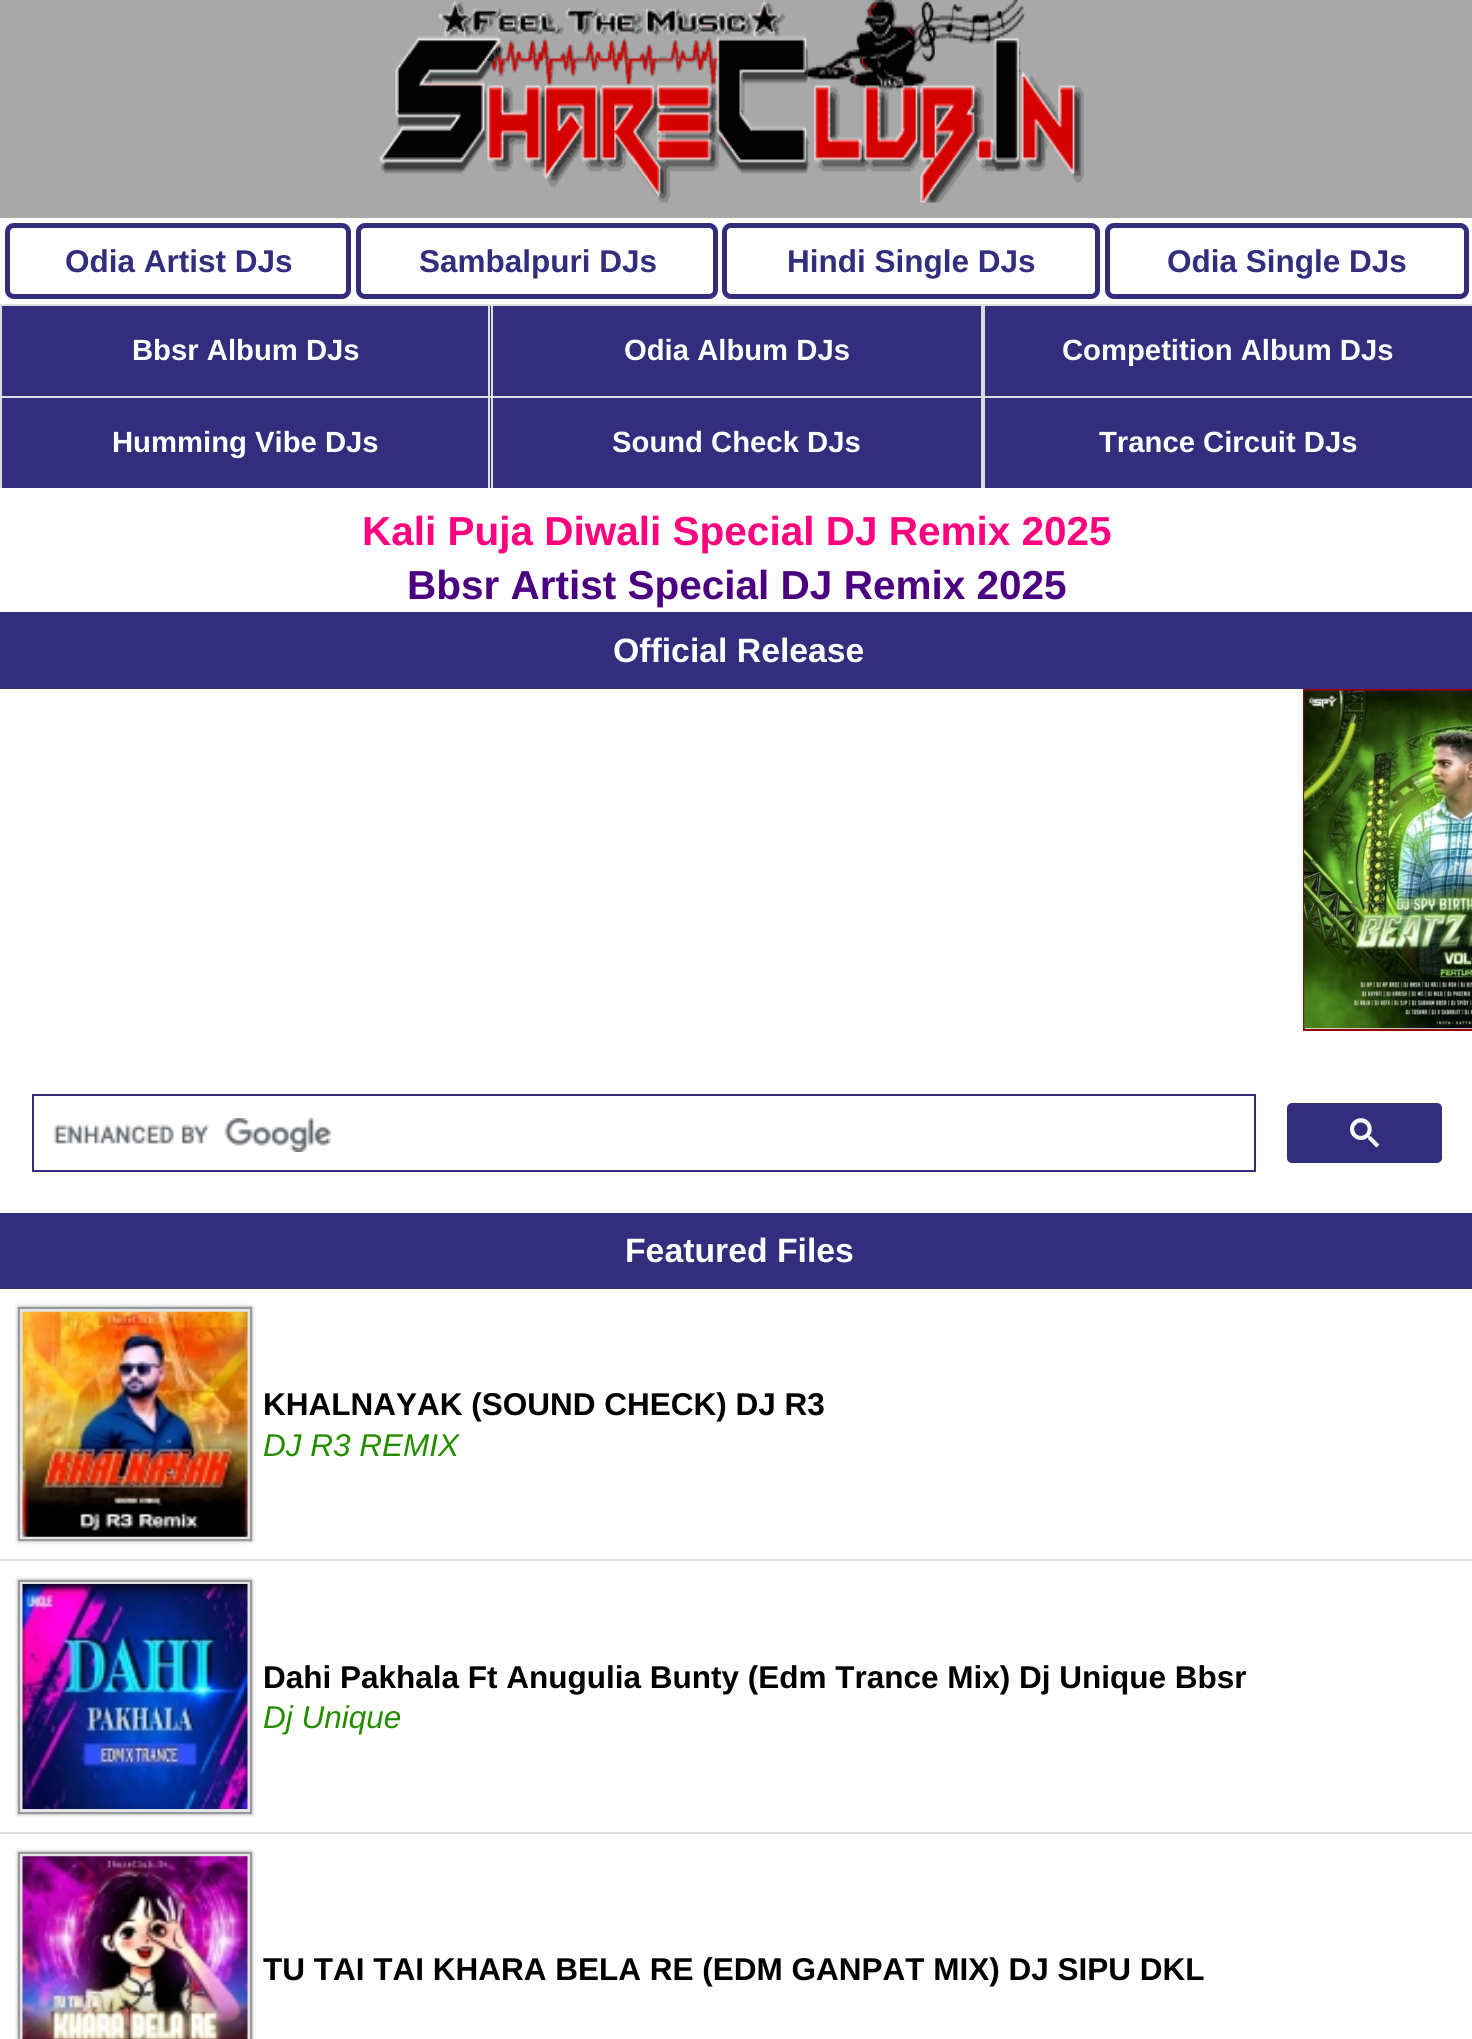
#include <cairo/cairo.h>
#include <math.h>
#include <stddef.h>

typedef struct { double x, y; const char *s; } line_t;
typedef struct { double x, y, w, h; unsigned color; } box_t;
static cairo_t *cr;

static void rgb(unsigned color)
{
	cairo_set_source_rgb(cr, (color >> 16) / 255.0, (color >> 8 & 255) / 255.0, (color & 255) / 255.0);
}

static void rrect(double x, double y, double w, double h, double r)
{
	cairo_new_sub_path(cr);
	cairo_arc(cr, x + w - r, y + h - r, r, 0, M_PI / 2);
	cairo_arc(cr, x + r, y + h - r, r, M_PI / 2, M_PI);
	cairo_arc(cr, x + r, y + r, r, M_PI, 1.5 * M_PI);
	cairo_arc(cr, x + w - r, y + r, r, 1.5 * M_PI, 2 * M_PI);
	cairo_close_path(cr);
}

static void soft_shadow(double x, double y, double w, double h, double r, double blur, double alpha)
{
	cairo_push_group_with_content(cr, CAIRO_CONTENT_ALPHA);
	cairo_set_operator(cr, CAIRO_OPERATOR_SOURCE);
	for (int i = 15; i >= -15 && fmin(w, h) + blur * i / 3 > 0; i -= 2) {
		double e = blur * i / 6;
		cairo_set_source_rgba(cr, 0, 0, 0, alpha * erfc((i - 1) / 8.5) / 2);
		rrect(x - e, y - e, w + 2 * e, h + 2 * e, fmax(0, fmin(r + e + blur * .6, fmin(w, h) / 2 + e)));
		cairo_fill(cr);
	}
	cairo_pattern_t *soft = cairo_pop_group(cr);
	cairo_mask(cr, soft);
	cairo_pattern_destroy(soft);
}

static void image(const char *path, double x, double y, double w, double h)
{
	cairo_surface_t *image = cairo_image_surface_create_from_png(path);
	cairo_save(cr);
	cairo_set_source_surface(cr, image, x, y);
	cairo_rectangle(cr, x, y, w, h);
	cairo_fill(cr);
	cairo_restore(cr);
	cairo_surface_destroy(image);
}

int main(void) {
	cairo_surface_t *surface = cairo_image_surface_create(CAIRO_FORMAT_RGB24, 1472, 2039);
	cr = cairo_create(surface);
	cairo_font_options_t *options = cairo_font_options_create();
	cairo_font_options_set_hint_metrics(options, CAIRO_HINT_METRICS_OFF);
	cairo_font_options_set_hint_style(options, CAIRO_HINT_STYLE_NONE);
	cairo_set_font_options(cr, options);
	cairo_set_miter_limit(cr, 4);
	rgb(0xffffff);
	cairo_paint(cr);
	rgb(0xa9a9a9);
	cairo_rectangle(cr, 0, 0, 1472, 218);
	cairo_fill(cr);
	image("img/1.png", 379, 0, 705, 203);
	rrect(7.5, 225.5, 341, 71, 6.5);
	rgb(0x342d7e);
	cairo_set_line_width(cr, 5);
	cairo_stroke(cr);
	rrect(358.5, 225.5, 357, 71, 6.5);
	cairo_stroke(cr);
	rrect(724.5, 225.5, 373, 71, 6.5);
	cairo_stroke(cr);
	rrect(1107.5, 225.5, 359, 71, 6.5);
	cairo_stroke(cr);
	{
		static const box_t items[] = {
			{2, 306, 1470, 182, 0x342d7e},
			{0, 304, 1472, 2, 0xdddddd},
			{488, 304, 2, 92, 0xdddddd},
			{0, 304, 2, 92, 0xdddddd},
			{981, 304, 4, 92, 0xdddddd},
			{491, 304, 2, 92, 0xdddddd},
			{0, 396, 1472, 2, 0xdddddd},
			{488, 396, 2, 92, 0xdddddd},
			{0, 396, 2, 92, 0xdddddd},
			{981, 396, 4, 92, 0xdddddd},
			{491, 396, 2, 92, 0xdddddd},
			{0, 612, 1472, 77, 0x342d7e},
		};
		for (size_t i = 0; i < sizeof items / sizeof *items; i++) {
			rgb(items[i].color);
			cairo_rectangle(cr, items[i].x, items[i].y, items[i].w, items[i].h);
			cairo_fill(cr);
		}
	}
	cairo_rectangle(cr, 1304, 690, 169, 340);
	rgb(0x990000);
	cairo_set_line_width(cr, 2);
	cairo_stroke(cr);
	image("img/2.png", 1303, 690, 169, 339);
	cairo_rectangle(cr, 33, 1095, 1222, 76);
	rgb(0x342d7e);
	cairo_stroke(cr);
	image("img/3.png", 54, 1118, 277, 34);
	rrect(1288, 1104, 153, 58, 4);
	cairo_fill_preserve(cr);
	cairo_stroke(cr);
	image("img/4.png", 1350, 1118, 29, 30);
	cairo_rectangle(cr, 0, 1213, 1472, 76);
	cairo_fill(cr);
	rgb(0xdddddd);
	cairo_rectangle(cr, 0, 1559, 1472, 2);
	cairo_fill(cr);
	rgb(0x999999);
	soft_shadow(18, 1307, 234, 234, 0, 2, 1);
	rgb(0xe2e5e7);
	cairo_rectangle(cr, 19, 1308, 232, 232);
	cairo_fill_preserve(cr);
	rgb(0x999999);
	cairo_stroke(cr);
	image("img/5.png", 22, 1311, 226, 226);
	rgb(0xdddddd);
	cairo_rectangle(cr, 0, 1832, 1472, 2);
	cairo_fill(cr);
	rgb(0x999999);
	soft_shadow(18, 1580, 234, 234, 0, 2, 1);
	rgb(0xe2e5e7);
	cairo_rectangle(cr, 19, 1581, 232, 232);
	cairo_fill_preserve(cr);
	rgb(0x999999);
	cairo_stroke(cr);
	image("img/6.png", 22, 1584, 226, 225);
	rgb(0x999999);
	soft_shadow(18, 1852, 234, 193, 0, 2, 1);
	rgb(0xe2e5e7);
	cairo_rectangle(cr, 19, 1853, 232, 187);
	cairo_fill_preserve(cr);
	rgb(0x999999);
	cairo_stroke(cr);
	image("img/7.png", 22, 1856, 226, 183);
	cairo_select_font_face(cr, "Liberation Sans", CAIRO_FONT_SLANT_NORMAL, CAIRO_FONT_WEIGHT_BOLD);
	cairo_set_font_size(cr, 31.5);
	rgb(0x342d7e);
	{
		static const line_t items[] = {
			{65, 272, "Odia Artist DJs"},
			{419, 272, "Sambalpuri DJs"},
			{787, 272, "Hindi Single DJs"},
			{1167, 272, "Odia Single DJs"},
		};
		for (size_t i = 0; i < sizeof items / sizeof *items; i++) {
			cairo_move_to(cr, items[i].x, items[i].y);
			cairo_show_text(cr, items[i].s);
		}
	}
	cairo_set_font_size(cr, 29.25);
	rgb(0xffffff);
	{
		static const line_t items[] = {
			{132, 360, "Bbsr Album DJs"},
			{624, 360, "Odia Album DJs"},
			{1062, 360, "Competition Album DJs"},
			{112, 452, "Humming Vibe DJs"},
			{612, 452, "Sound Check DJs"},
			{1099, 452, "Trance Circuit DJs"},
		};
		for (size_t i = 0; i < sizeof items / sizeof *items; i++) {
			cairo_move_to(cr, items[i].x, items[i].y);
			cairo_show_text(cr, items[i].s);
		}
	}
	cairo_set_font_size(cr, 40.5);
	rgb(0xff007f);
	cairo_move_to(cr, 362, 545);
	cairo_show_text(cr, "Kali Puja Diwali Special DJ Remix 2025");
	rgb(0x4b0082);
	cairo_move_to(cr, 407, 599);
	cairo_show_text(cr, "Bbsr Artist Special DJ Remix 2025");
	cairo_set_font_size(cr, 33.75);
	rgb(0xffffff);
	cairo_move_to(cr, 613, 662);
	cairo_show_text(cr, "Official Release");
	cairo_move_to(cr, 625, 1262);
	cairo_show_text(cr, "Featured Files");
	cairo_set_font_size(cr, 31.5);
	rgb(0x000000);
	cairo_move_to(cr, 263, 1415);
	cairo_show_text(cr, "KHALNAYAK (SOUND CHECK) DJ R3");
	cairo_select_font_face(cr, "Liberation Sans", CAIRO_FONT_SLANT_ITALIC, CAIRO_FONT_WEIGHT_NORMAL);
	rgb(0x238d00);
	cairo_move_to(cr, 263, 1456);
	cairo_show_text(cr, "DJ R3 REMIX");
	cairo_select_font_face(cr, "Liberation Sans", CAIRO_FONT_SLANT_NORMAL, CAIRO_FONT_WEIGHT_BOLD);
	rgb(0x000000);
	cairo_move_to(cr, 263, 1688);
	cairo_show_text(cr, "Dahi Pakhala Ft Anugulia Bunty (Edm Trance Mix) Dj Unique Bbsr");
	cairo_select_font_face(cr, "Liberation Sans", CAIRO_FONT_SLANT_ITALIC, CAIRO_FONT_WEIGHT_NORMAL);
	rgb(0x238d00);
	cairo_move_to(cr, 263, 1728);
	cairo_show_text(cr, "Dj Unique");
	cairo_select_font_face(cr, "Liberation Sans", CAIRO_FONT_SLANT_NORMAL, CAIRO_FONT_WEIGHT_BOLD);
	rgb(0x000000);
	cairo_move_to(cr, 263, 1980);
	cairo_show_text(cr, "TU TAI TAI KHARA BELA RE (EDM GANPAT MIX) DJ SIPU DKL");
	cairo_surface_write_to_png(surface, "page.png");
	cairo_font_options_destroy(options);
	cairo_destroy(cr);
	cairo_surface_destroy(surface);
	return 0;
}
